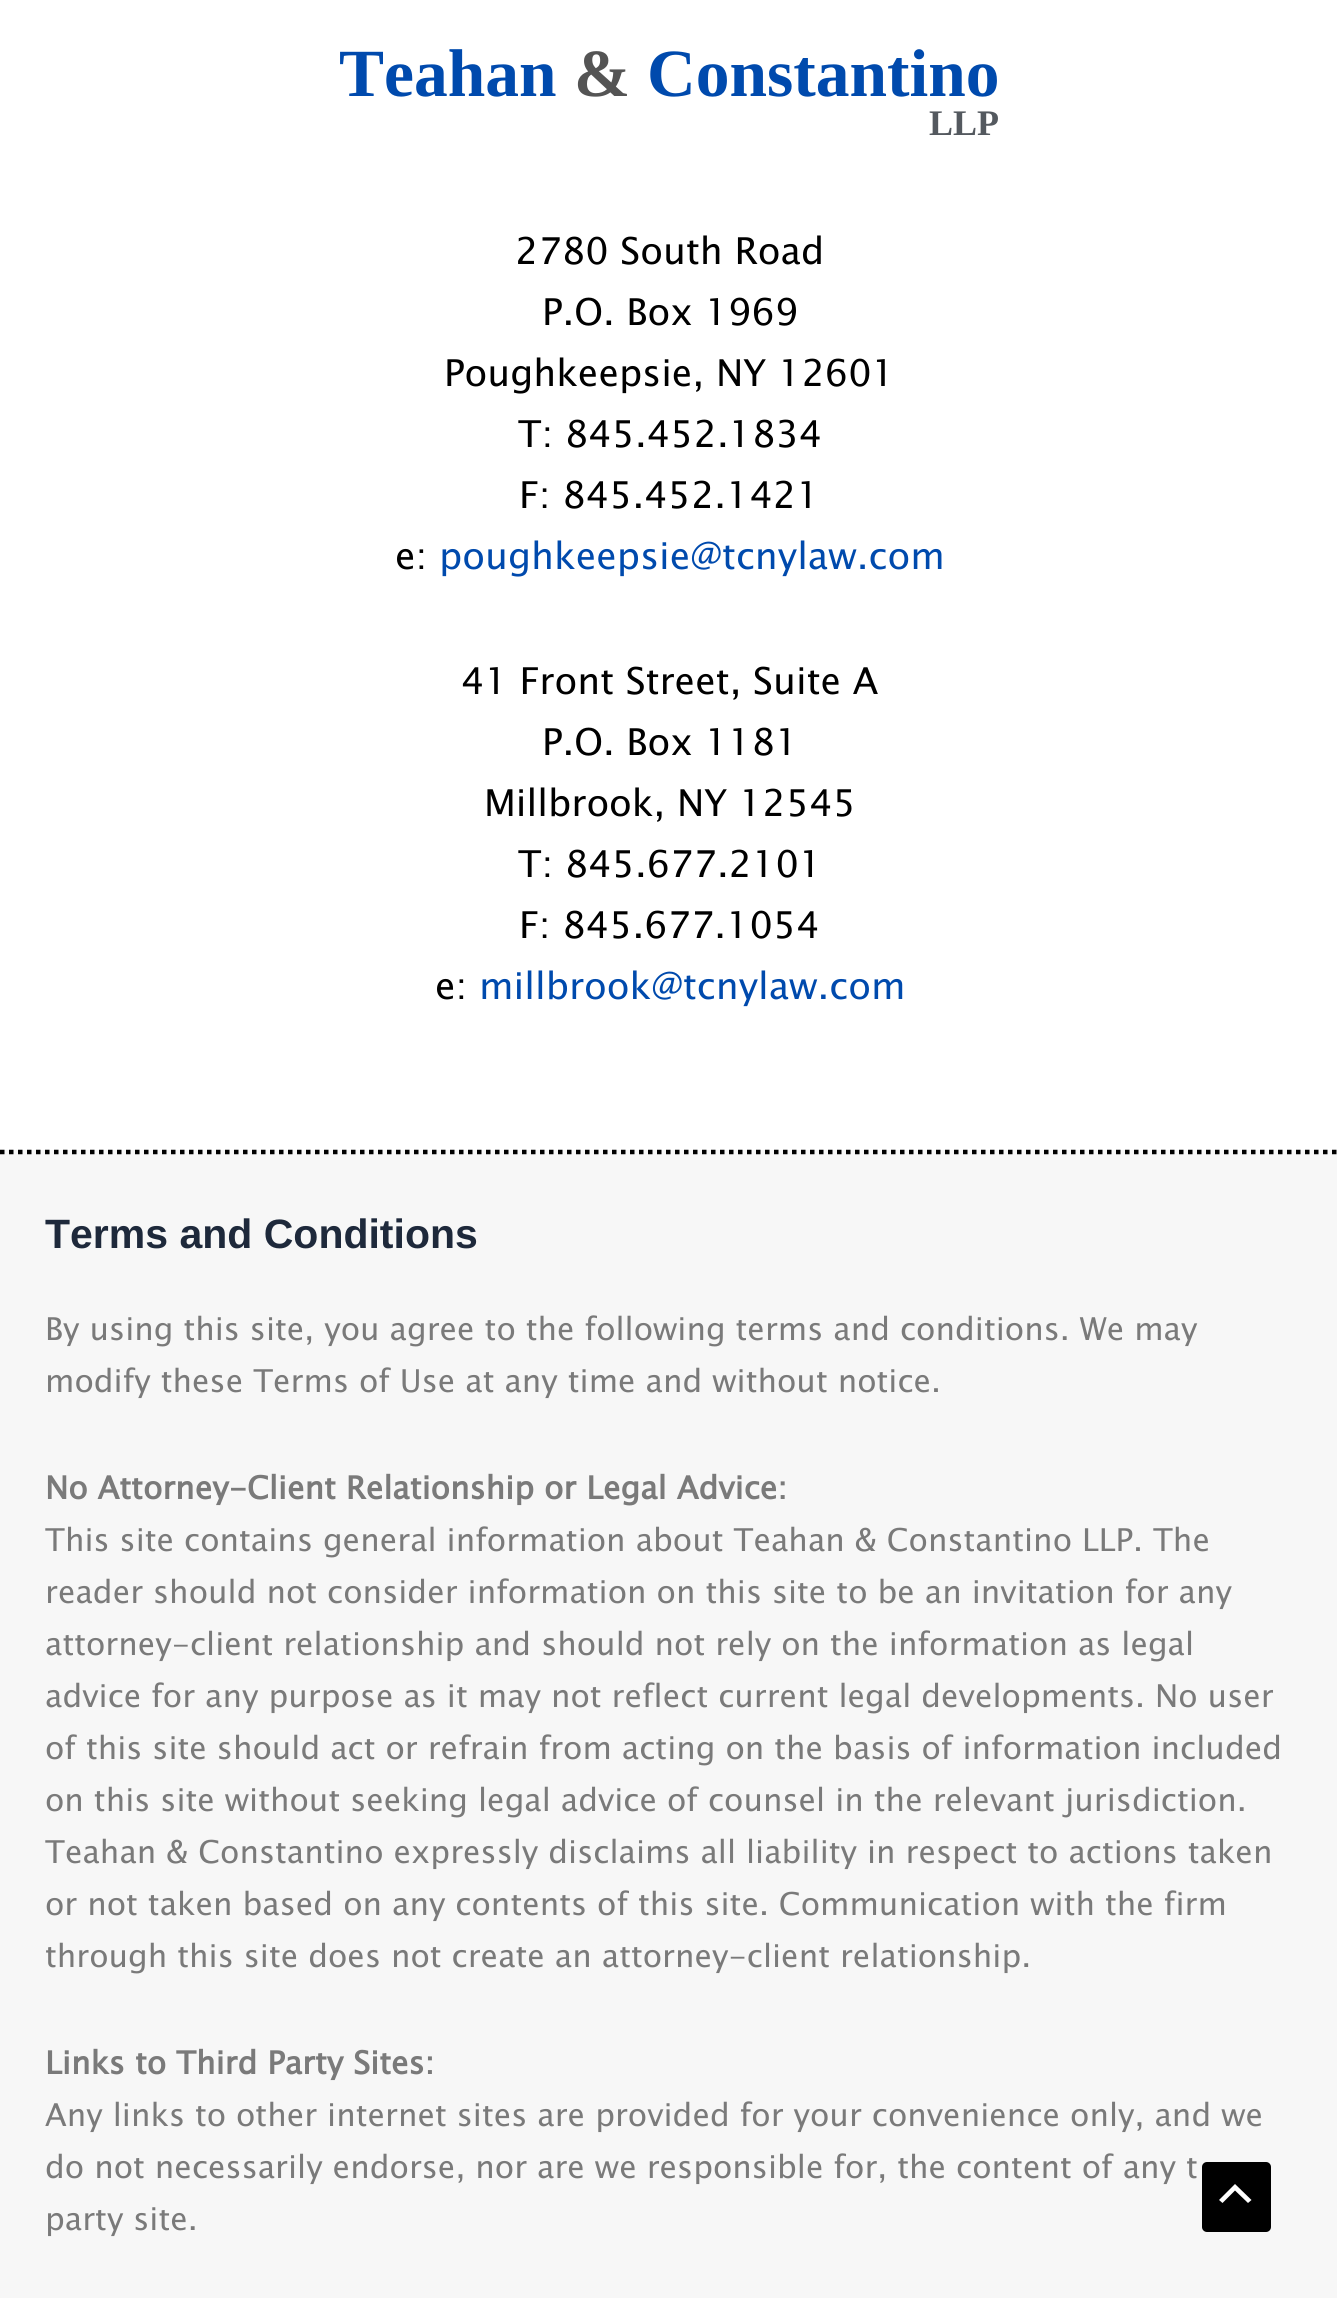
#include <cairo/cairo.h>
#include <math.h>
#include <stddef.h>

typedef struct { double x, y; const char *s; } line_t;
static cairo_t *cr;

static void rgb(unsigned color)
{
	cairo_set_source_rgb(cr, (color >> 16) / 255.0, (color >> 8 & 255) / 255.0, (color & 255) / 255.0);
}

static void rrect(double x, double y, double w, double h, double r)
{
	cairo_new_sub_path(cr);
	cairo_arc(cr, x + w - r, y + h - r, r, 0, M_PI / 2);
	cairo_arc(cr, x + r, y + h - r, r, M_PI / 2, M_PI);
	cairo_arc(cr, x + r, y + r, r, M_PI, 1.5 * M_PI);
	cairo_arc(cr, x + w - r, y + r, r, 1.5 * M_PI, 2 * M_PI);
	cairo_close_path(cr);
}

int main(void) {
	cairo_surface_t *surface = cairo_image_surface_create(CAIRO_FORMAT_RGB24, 1337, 2298);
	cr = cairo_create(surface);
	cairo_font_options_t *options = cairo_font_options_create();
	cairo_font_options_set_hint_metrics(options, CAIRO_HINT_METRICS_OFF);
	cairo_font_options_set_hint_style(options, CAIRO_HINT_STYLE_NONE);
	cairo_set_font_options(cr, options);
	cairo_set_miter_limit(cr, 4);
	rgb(0xffffff);
	cairo_paint(cr);
	rgb(0xf7f7f7);
	cairo_rectangle(cr, 0, 1150, 1337, 1148);
	cairo_fill(cr);
	cairo_new_path(cr);
	cairo_move_to(cr, 0, 1152);
	cairo_line_to(cr, 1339, 1152);
	rgb(0x000000);
	cairo_set_line_width(cr, 4.5);
	cairo_set_dash(cr, (double[]){4.5, 4.5}, 2, 0);
	cairo_stroke(cr);
	rrect(1202, 2162, 69, 70, 5);
	cairo_fill(cr);
	rgb(0xffffff);
	cairo_new_path(cr);
	cairo_move_to(cr, 1251.5, 2200);
	cairo_line_to(cr, 1235, 2184);
	cairo_line_to(cr, 1219, 2200);
	cairo_line_to(cr, 1222.5, 2203);
	cairo_line_to(cr, 1235, 2190.5);
	cairo_line_to(cr, 1248, 2203);
	cairo_close_path(cr);
	cairo_fill(cr);
	cairo_select_font_face(cr, "Liberation Serif", CAIRO_FONT_SLANT_NORMAL, CAIRO_FONT_WEIGHT_BOLD);
	cairo_set_font_size(cr, 67.5);
	rgb(0x004aad);
	cairo_move_to(cr, 339, 96);
	cairo_show_text(cr, "Teahan");
	rgb(0x545454);
	cairo_move_to(cr, 574, 96);
	cairo_show_text(cr, "&");
	rgb(0x004aad);
	cairo_move_to(cr, 647, 96);
	cairo_show_text(cr, "Constantino");
	cairo_set_font_size(cr, 36);
	rgb(0x54595f);
	cairo_move_to(cr, 929, 135);
	cairo_show_text(cr, "LLP");
	cairo_select_font_face(cr, "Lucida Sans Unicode", CAIRO_FONT_SLANT_NORMAL, CAIRO_FONT_WEIGHT_NORMAL);
	cairo_set_font_size(cr, 37);
	rgb(0x000000);
	{
		static const line_t items[] = {
			{515, 264, "2780 South Road"},
			{542, 325, "P.O. Box 1969"},
			{444, 386, "Poughkeepsie, NY 12601"},
			{518, 447, "T: 845.452.1834"},
			{519, 508, "F: 845.452.1421"},
			{395, 569, "e:"},
		};
		for (size_t i = 0; i < sizeof items / sizeof *items; i++) {
			cairo_move_to(cr, items[i].x, items[i].y);
			cairo_show_text(cr, items[i].s);
		}
	}
	rgb(0x004aad);
	cairo_move_to(cr, 439, 569);
	cairo_show_text(cr, "poughkeepsie@tcnylaw.com");
	rgb(0x000000);
	{
		static const line_t items[] = {
			{461, 694, "41 Front Street, Suite A"},
			{542, 755, "P.O. Box 1181"},
			{484, 816, "Millbrook, NY 12545"},
			{518, 877, "T: 845.677.2101"},
			{519, 938, "F: 845.677.1054"},
			{435, 999, "e:"},
		};
		for (size_t i = 0; i < sizeof items / sizeof *items; i++) {
			cairo_move_to(cr, items[i].x, items[i].y);
			cairo_show_text(cr, items[i].s);
		}
	}
	rgb(0x004aad);
	cairo_move_to(cr, 479, 999);
	cairo_show_text(cr, "millbrook@tcnylaw.com");
	cairo_select_font_face(cr, "Liberation Sans", CAIRO_FONT_SLANT_NORMAL, CAIRO_FONT_WEIGHT_BOLD);
	cairo_set_font_size(cr, 41);
	rgb(0x1e293b);
	cairo_move_to(cr, 45, 1248);
	cairo_show_text(cr, "Terms and Conditions");
	cairo_select_font_face(cr, "Lucida Sans Unicode", CAIRO_FONT_SLANT_NORMAL, CAIRO_FONT_WEIGHT_NORMAL);
	cairo_set_font_size(cr, 31.5);
	rgb(0x7a7a7a);
	cairo_move_to(cr, 45, 1340);
	cairo_show_text(cr, "By using this site, you agree to the following terms and conditions. We may");
	cairo_move_to(cr, 45, 1392);
	cairo_show_text(cr, "modify these Terms of Use at any time and without notice.");
	cairo_select_font_face(cr, "Lucida Sans Unicode", CAIRO_FONT_SLANT_NORMAL, CAIRO_FONT_WEIGHT_BOLD);
	cairo_move_to(cr, 45, 1499);
	cairo_show_text(cr, "No Attorney-Client Relationship or Legal Advice:");
	cairo_select_font_face(cr, "Lucida Sans Unicode", CAIRO_FONT_SLANT_NORMAL, CAIRO_FONT_WEIGHT_NORMAL);
	{
		static const line_t items[] = {
			{45, 1551, "This site contains general information about Teahan & Constantino LLP. The"},
			{45, 1603, "reader should not consider information on this site to be an invitation for any"},
			{45, 1655, "attorney-client relationship and should not rely on the information as legal"},
			{45, 1707, "advice for any purpose as it may not reflect current legal developments. No user"},
			{45, 1759, "of this site should act or refrain from acting on the basis of information included"},
			{45, 1811, "on this site without seeking legal advice of counsel in the relevant jurisdiction."},
			{45, 1863, "Teahan & Constantino expressly disclaims all liability in respect to actions taken"},
			{45, 1915, "or not taken based on any contents of this site. Communication with the firm"},
			{45, 1967, "through this site does not create an attorney-client relationship."},
		};
		for (size_t i = 0; i < sizeof items / sizeof *items; i++) {
			cairo_move_to(cr, items[i].x, items[i].y);
			cairo_show_text(cr, items[i].s);
		}
	}
	cairo_select_font_face(cr, "Lucida Sans Unicode", CAIRO_FONT_SLANT_NORMAL, CAIRO_FONT_WEIGHT_BOLD);
	cairo_move_to(cr, 45, 2074);
	cairo_show_text(cr, "Links to Third Party Sites:");
	cairo_select_font_face(cr, "Lucida Sans Unicode", CAIRO_FONT_SLANT_NORMAL, CAIRO_FONT_WEIGHT_NORMAL);
	{
		static const line_t items[] = {
			{45, 2126, "Any links to other internet sites are provided for your convenience only, and we"},
			{45, 2178, "do not necessarily endorse, nor are we responsible for, the content of any t"},
			{45, 2230, "party site."},
		};
		for (size_t i = 0; i < sizeof items / sizeof *items; i++) {
			cairo_move_to(cr, items[i].x, items[i].y);
			cairo_show_text(cr, items[i].s);
		}
	}
	cairo_surface_write_to_png(surface, "page.png");
	cairo_font_options_destroy(options);
	cairo_destroy(cr);
	cairo_surface_destroy(surface);
	return 0;
}
